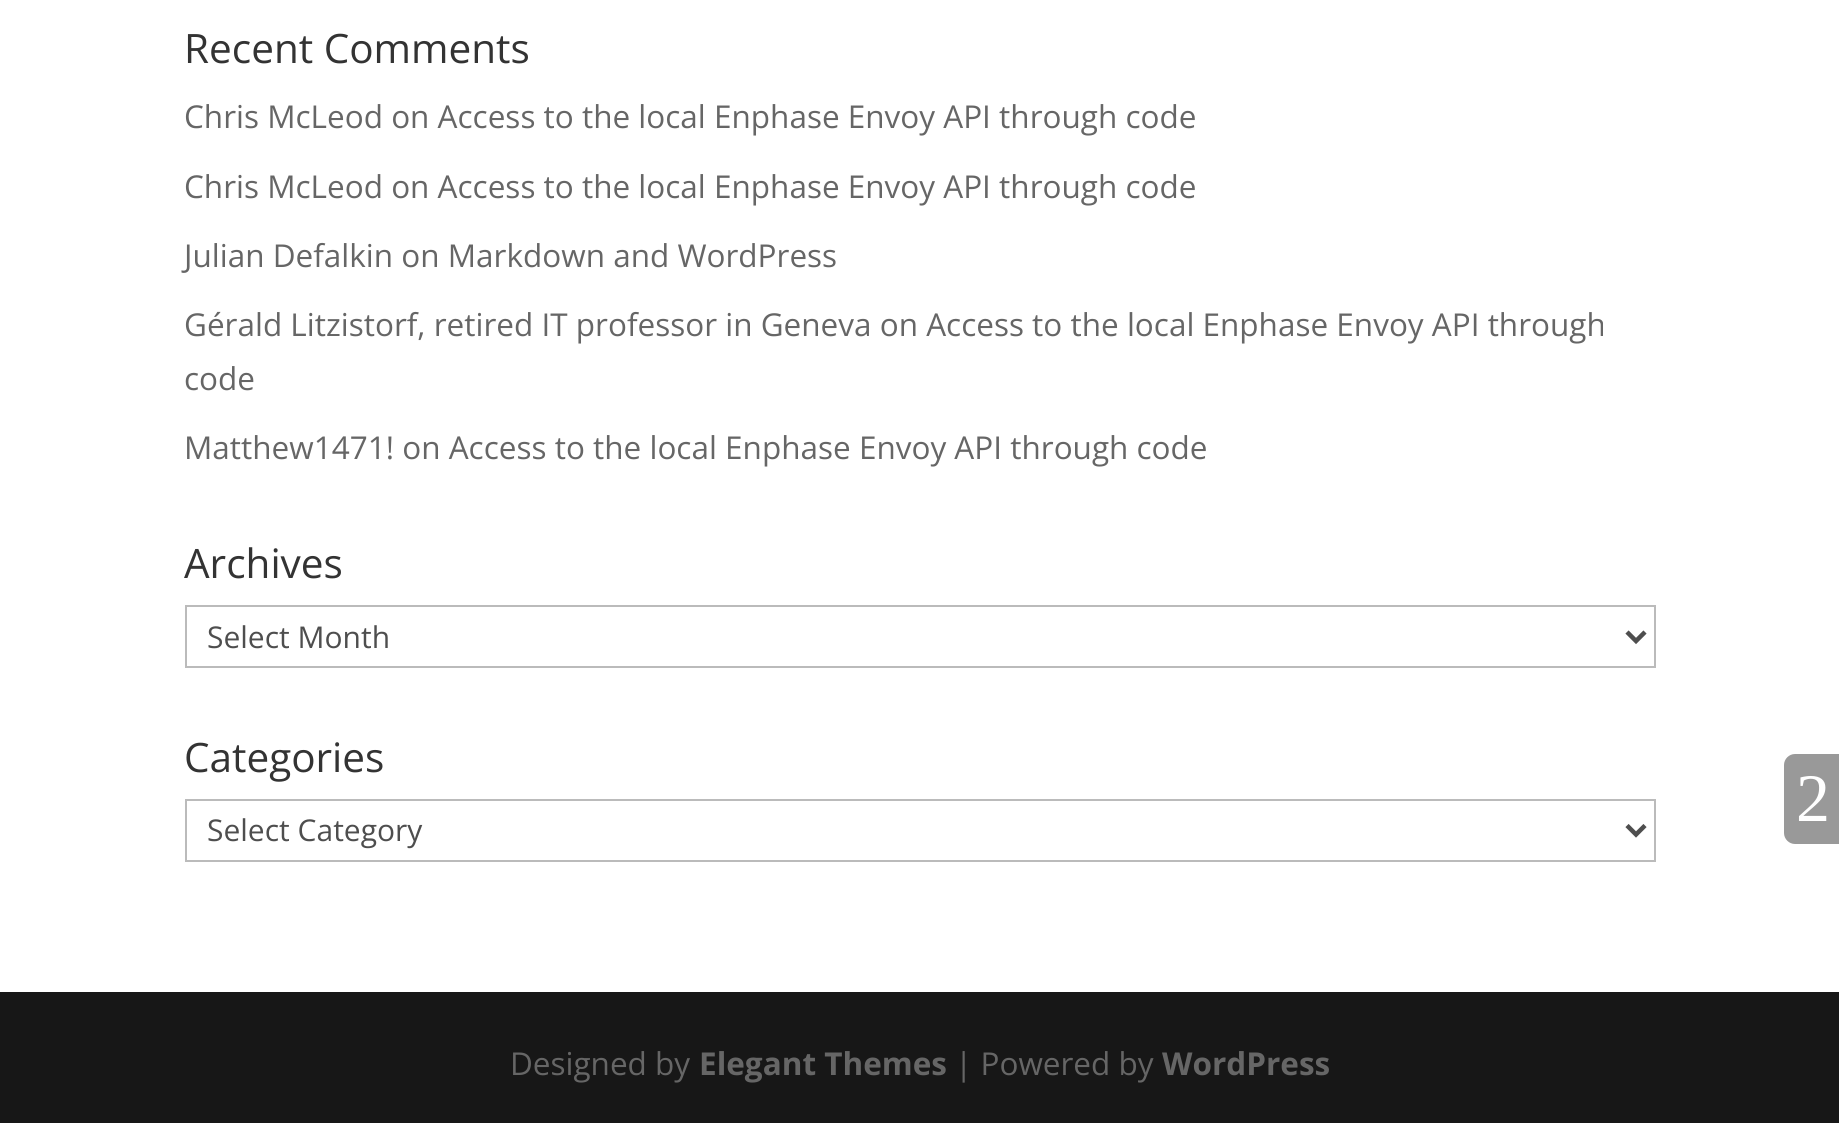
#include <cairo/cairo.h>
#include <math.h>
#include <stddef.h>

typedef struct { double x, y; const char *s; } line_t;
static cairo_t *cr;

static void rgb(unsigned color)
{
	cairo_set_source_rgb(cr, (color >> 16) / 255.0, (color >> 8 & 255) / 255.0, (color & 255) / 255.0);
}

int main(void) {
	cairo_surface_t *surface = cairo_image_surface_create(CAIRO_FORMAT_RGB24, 1839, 1123);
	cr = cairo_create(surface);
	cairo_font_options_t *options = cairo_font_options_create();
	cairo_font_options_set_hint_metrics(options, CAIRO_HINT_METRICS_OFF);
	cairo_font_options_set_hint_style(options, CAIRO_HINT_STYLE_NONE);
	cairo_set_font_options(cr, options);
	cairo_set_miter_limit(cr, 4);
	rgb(0xffffff);
	cairo_paint(cr);
	cairo_rectangle(cr, 186, 606, 1469, 61);
	rgb(0xbbbbbb);
	cairo_stroke(cr);
	cairo_new_path(cr);
	cairo_move_to(cr, 1627, 632);
	cairo_line_to(cr, 1636, 641);
	cairo_line_to(cr, 1645, 632);
	rgb(0x4e4e4e);
	cairo_set_line_width(cr, 4.5);
	cairo_stroke(cr);
	cairo_rectangle(cr, 186, 800, 1469, 61);
	rgb(0xbbbbbb);
	cairo_set_line_width(cr, 2);
	cairo_stroke(cr);
	cairo_new_path(cr);
	cairo_move_to(cr, 1627, 825.5);
	cairo_line_to(cr, 1636, 834.5);
	cairo_line_to(cr, 1645, 825.5);
	rgb(0x4e4e4e);
	cairo_set_line_width(cr, 4.5);
	cairo_stroke(cr);
	rgb(0x999999);
	cairo_new_path(cr);
	cairo_move_to(cr, 1795, 754);
	cairo_line_to(cr, 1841, 754);
	cairo_line_to(cr, 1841, 844);
	cairo_line_to(cr, 1795, 844);
	cairo_curve_to(cr, 1789, 844, 1784, 839, 1784, 833);
	cairo_line_to(cr, 1784, 765);
	cairo_curve_to(cr, 1784, 759, 1789, 754, 1795, 754);
	cairo_close_path(cr);
	cairo_fill(cr);
	rgb(0x171717);
	cairo_rectangle(cr, 0, 992, 1839, 131);
	cairo_fill(cr);
	cairo_select_font_face(cr, "Open Sans", CAIRO_FONT_SLANT_NORMAL, CAIRO_FONT_WEIGHT_NORMAL);
	cairo_set_font_size(cr, 40.5);
	rgb(0x333333);
	cairo_move_to(cr, 184, 63);
	cairo_show_text(cr, "Recent Comments");
	cairo_set_font_size(cr, 31.5);
	rgb(0x666666);
	{
		static const line_t items[] = {
			{184, 128, "Chris McLeod on Access to the local Enphase Envoy API through code"},
			{184, 198, "Chris McLeod on Access to the local Enphase Envoy API through code"},
			{184, 267, "Julian Defalkin on Markdown and WordPress"},
			{184, 336, "Gérald Litzistorf, retired IT professor in Geneva on Access to the local Enphase Envoy API through"},
			{184, 390, "code"},
			{184, 459, "Matthew1471! on Access to the local Enphase Envoy API through code"},
		};
		for (size_t i = 0; i < sizeof items / sizeof *items; i++) {
			cairo_move_to(cr, items[i].x, items[i].y);
			cairo_show_text(cr, items[i].s);
		}
	}
	cairo_set_font_size(cr, 40.5);
	rgb(0x333333);
	cairo_move_to(cr, 184, 578);
	cairo_show_text(cr, "Archives");
	cairo_set_font_size(cr, 30);
	rgb(0x4e4e4e);
	cairo_move_to(cr, 207, 648);
	cairo_show_text(cr, "Select Month");
	cairo_set_font_size(cr, 40.5);
	rgb(0x333333);
	cairo_move_to(cr, 184, 772);
	cairo_show_text(cr, "Categories");
	cairo_set_font_size(cr, 30);
	rgb(0x4e4e4e);
	cairo_move_to(cr, 207, 841);
	cairo_show_text(cr, "Select Category");
	cairo_select_font_face(cr, "Liberation Serif", CAIRO_FONT_SLANT_NORMAL, CAIRO_FONT_WEIGHT_NORMAL);
	cairo_set_font_size(cr, 68);
	rgb(0xffffff);
	cairo_move_to(cr, 1796, 821);
	cairo_show_text(cr, "2");
	cairo_select_font_face(cr, "Open Sans", CAIRO_FONT_SLANT_NORMAL, CAIRO_FONT_WEIGHT_NORMAL);
	cairo_set_font_size(cr, 31.5);
	rgb(0x666666);
	cairo_move_to(cr, 510, 1075);
	cairo_show_text(cr, "Designed by");
	cairo_select_font_face(cr, "Open Sans", CAIRO_FONT_SLANT_NORMAL, CAIRO_FONT_WEIGHT_BOLD);
	cairo_move_to(cr, 699, 1075);
	cairo_show_text(cr, "Elegant Themes");
	cairo_select_font_face(cr, "Open Sans", CAIRO_FONT_SLANT_NORMAL, CAIRO_FONT_WEIGHT_NORMAL);
	cairo_move_to(cr, 955, 1075);
	cairo_show_text(cr, "| Powered by");
	cairo_select_font_face(cr, "Open Sans", CAIRO_FONT_SLANT_NORMAL, CAIRO_FONT_WEIGHT_BOLD);
	cairo_move_to(cr, 1162, 1075);
	cairo_show_text(cr, "WordPress");
	cairo_surface_write_to_png(surface, "page.png");
	cairo_font_options_destroy(options);
	cairo_destroy(cr);
	cairo_surface_destroy(surface);
	return 0;
}
